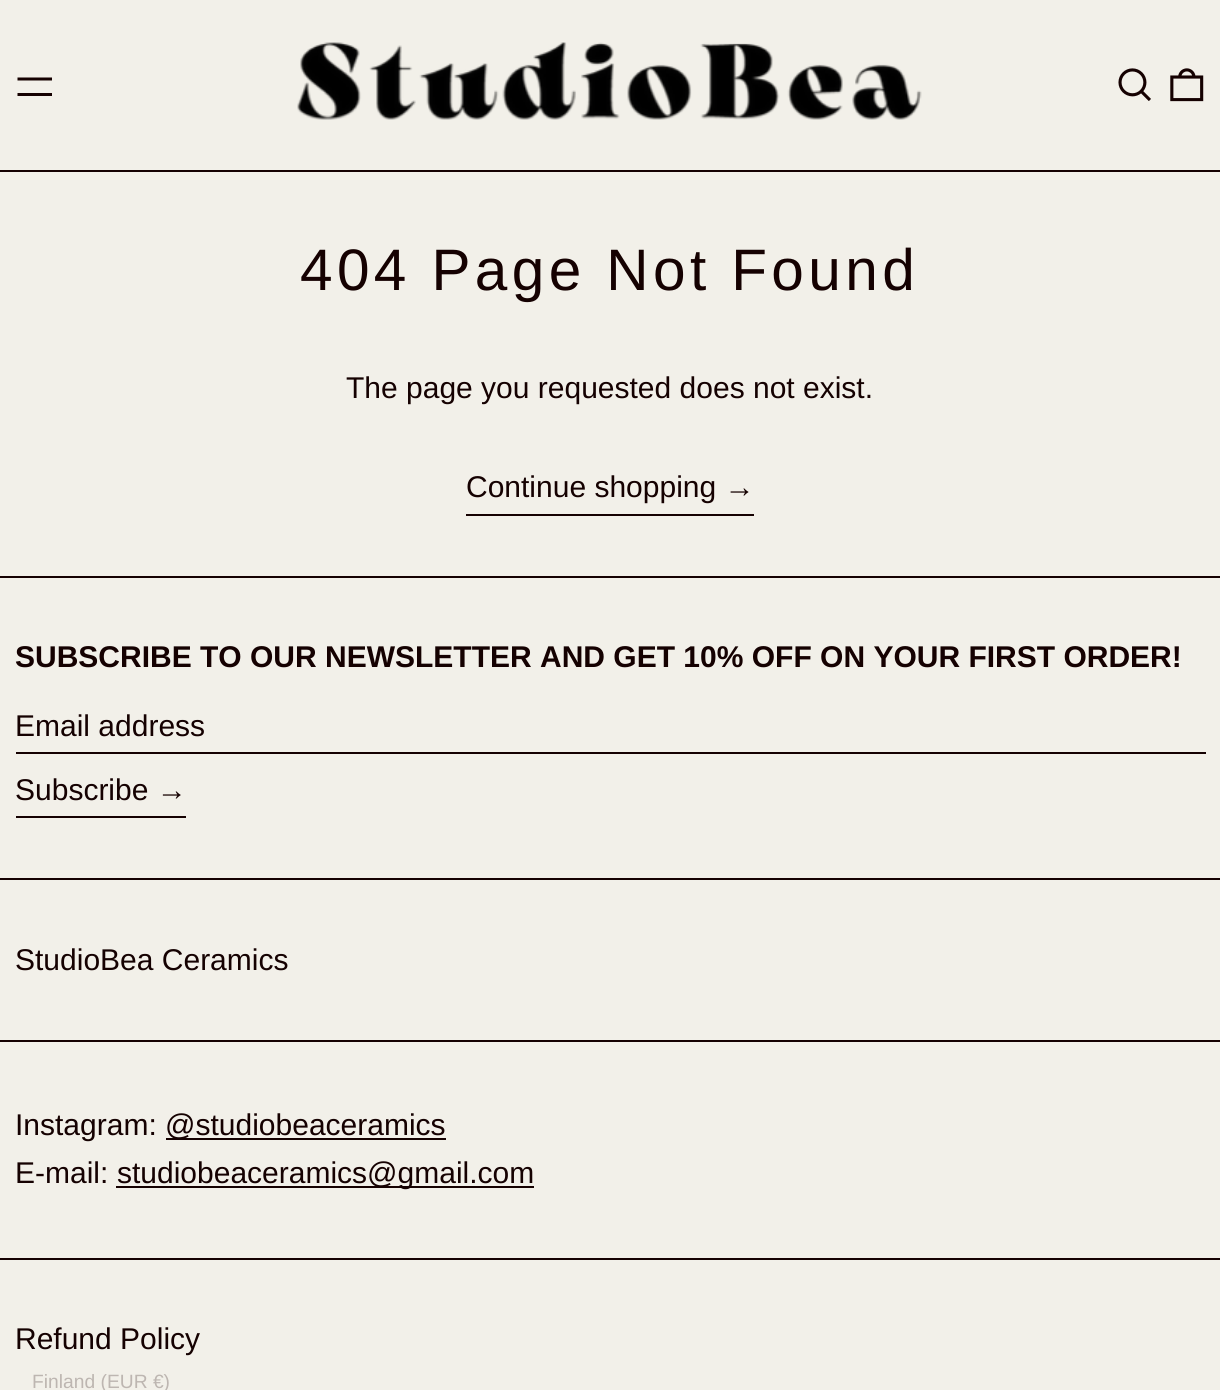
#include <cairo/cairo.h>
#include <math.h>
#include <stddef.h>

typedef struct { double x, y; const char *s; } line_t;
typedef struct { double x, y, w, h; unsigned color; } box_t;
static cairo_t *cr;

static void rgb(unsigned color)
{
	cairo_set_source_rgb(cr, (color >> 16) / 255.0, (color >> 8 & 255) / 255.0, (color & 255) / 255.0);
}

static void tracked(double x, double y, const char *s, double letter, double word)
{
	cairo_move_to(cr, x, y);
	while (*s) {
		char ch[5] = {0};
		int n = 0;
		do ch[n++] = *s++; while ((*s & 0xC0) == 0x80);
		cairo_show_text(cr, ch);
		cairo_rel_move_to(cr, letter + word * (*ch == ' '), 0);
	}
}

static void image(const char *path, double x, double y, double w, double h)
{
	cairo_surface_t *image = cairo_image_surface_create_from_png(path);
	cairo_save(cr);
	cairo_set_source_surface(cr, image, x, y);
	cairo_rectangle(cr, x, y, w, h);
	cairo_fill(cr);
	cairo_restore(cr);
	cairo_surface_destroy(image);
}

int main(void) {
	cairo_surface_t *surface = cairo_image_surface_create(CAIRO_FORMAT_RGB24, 1220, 1390);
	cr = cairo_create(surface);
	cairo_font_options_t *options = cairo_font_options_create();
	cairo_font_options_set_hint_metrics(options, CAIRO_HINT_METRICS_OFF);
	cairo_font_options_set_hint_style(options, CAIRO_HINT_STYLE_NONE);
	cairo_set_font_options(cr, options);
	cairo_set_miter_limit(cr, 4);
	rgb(0xf2f0e9);
	cairo_paint(cr);
	rgb(0x150101);
	cairo_rectangle(cr, 0, 170, 1220, 2);
	cairo_fill(cr);
	cairo_set_fill_rule(cr, CAIRO_FILL_RULE_EVEN_ODD);
	cairo_new_path(cr);
	cairo_move_to(cr, 52, 93);
	cairo_line_to(cr, 52, 96);
	cairo_line_to(cr, 17.5, 96);
	cairo_line_to(cr, 17.5, 93);
	cairo_close_path(cr);
	cairo_move_to(cr, 52, 77.5);
	cairo_line_to(cr, 52, 80.5);
	cairo_line_to(cr, 17.5, 80.5);
	cairo_line_to(cr, 17.5, 77.5);
	cairo_close_path(cr);
	cairo_fill(cr);
	image("img/1.png", 297, 42, 625, 78);
	image("img/2.png", 1118, 68, 33, 33);
	image("img/3.png", 1170, 68, 34, 34);
	{
		static const box_t items[] = {
			{466, 514, 288, 2, 0x150101},
			{0, 576, 1220, 2, 0x150101},
			{16, 752, 1190, 2, 0x150101},
			{16, 816, 170, 2, 0x150101},
			{0, 878, 1220, 2, 0x150101},
			{0, 1040, 1220, 220, 0x150101},
			{0, 1042, 1220, 216, 0xf2f0e9},
			{166, 1138, 280, 2, 0x150101},
			{116, 1186, 418, 2, 0x150101},
		};
		for (size_t i = 0; i < sizeof items / sizeof *items; i++) {
			rgb(items[i].color);
			cairo_rectangle(cr, items[i].x, items[i].y, items[i].w, items[i].h);
			cairo_fill(cr);
		}
	}
	cairo_select_font_face(cr, "Liberation Sans", CAIRO_FONT_SLANT_NORMAL, CAIRO_FONT_WEIGHT_NORMAL);
	cairo_set_font_size(cr, 58.5);
	tracked(300, 290, "404 Page Not Found", 4.4, 0);
	cairo_set_font_size(cr, 30);
	cairo_move_to(cr, 346, 398);
	cairo_show_text(cr, "The page you requested does not exist.");
	cairo_move_to(cr, 466, 497);
	cairo_show_text(cr, "Continue shopping →");
	cairo_select_font_face(cr, "Liberation Sans", CAIRO_FONT_SLANT_NORMAL, CAIRO_FONT_WEIGHT_BOLD);
	cairo_move_to(cr, 15, 667);
	cairo_show_text(cr, "SUBSCRIBE TO OUR NEWSLETTER AND GET 10% OFF ON YOUR FIRST ORDER!");
	cairo_select_font_face(cr, "Liberation Sans", CAIRO_FONT_SLANT_NORMAL, CAIRO_FONT_WEIGHT_NORMAL);
	{
		static const line_t items[] = {
			{15, 736, "Email address"},
			{15, 800, "Subscribe →"},
			{15, 970, "StudioBea Ceramics"},
			{15, 1135, "Instagram:"},
			{165, 1135, "@studiobeaceramics"},
			{15, 1183, "E-mail:"},
			{117, 1183, "studiobeaceramics@gmail.com"},
			{15, 1349, "Refund Policy"},
		};
		for (size_t i = 0; i < sizeof items / sizeof *items; i++) {
			cairo_move_to(cr, items[i].x, items[i].y);
			cairo_show_text(cr, items[i].s);
		}
	}
	cairo_set_font_size(cr, 19.25);
	rgb(0xbdb6b1);
	cairo_move_to(cr, 32, 1388);
	cairo_show_text(cr, "Finland (EUR €)");
	cairo_surface_write_to_png(surface, "page.png");
	cairo_font_options_destroy(options);
	cairo_destroy(cr);
	cairo_surface_destroy(surface);
	return 0;
}
